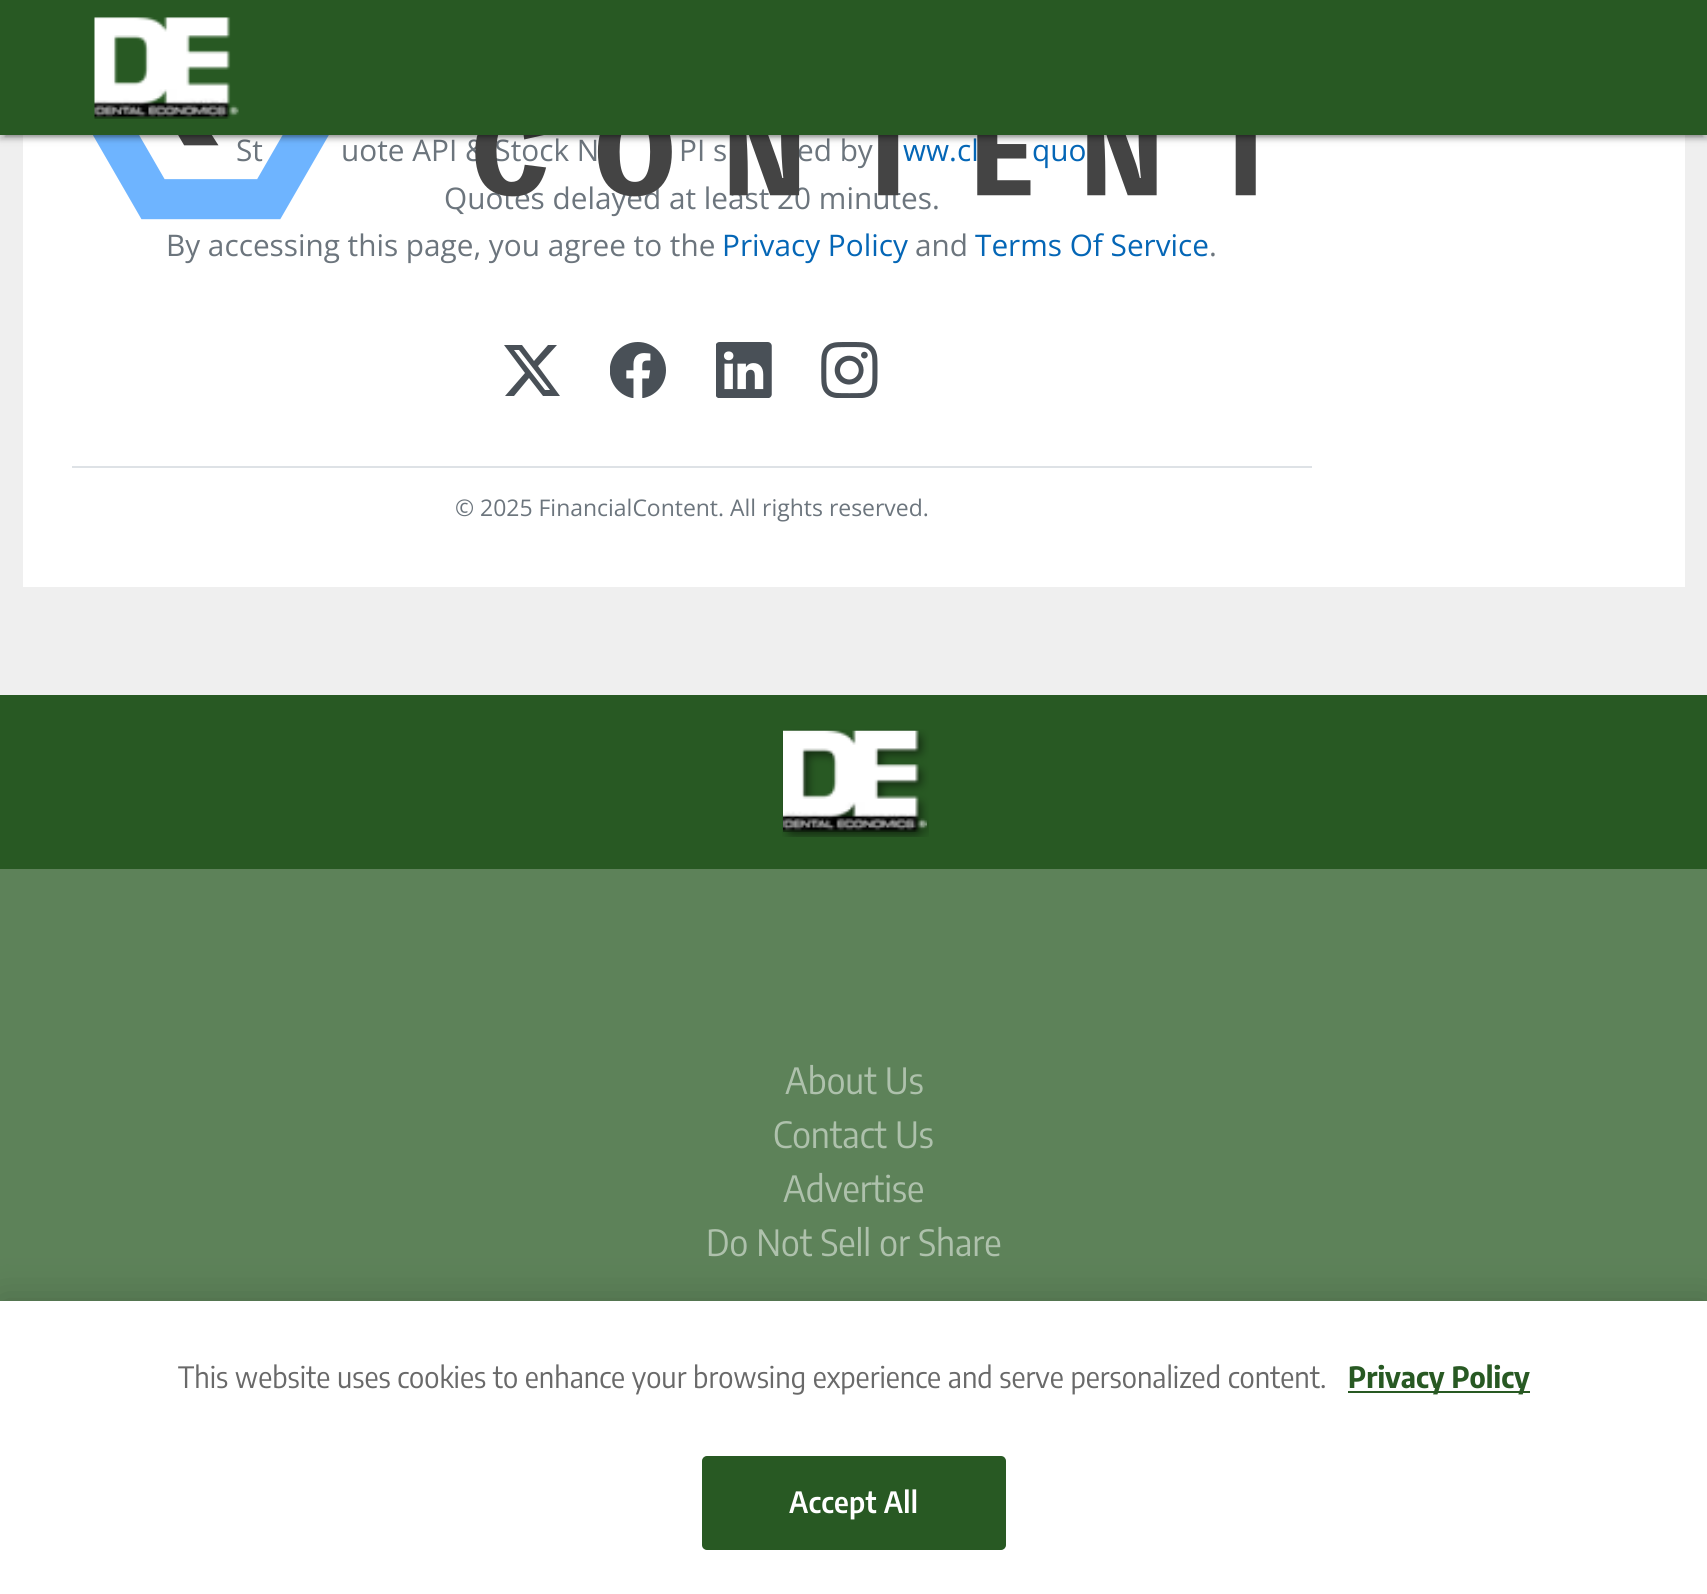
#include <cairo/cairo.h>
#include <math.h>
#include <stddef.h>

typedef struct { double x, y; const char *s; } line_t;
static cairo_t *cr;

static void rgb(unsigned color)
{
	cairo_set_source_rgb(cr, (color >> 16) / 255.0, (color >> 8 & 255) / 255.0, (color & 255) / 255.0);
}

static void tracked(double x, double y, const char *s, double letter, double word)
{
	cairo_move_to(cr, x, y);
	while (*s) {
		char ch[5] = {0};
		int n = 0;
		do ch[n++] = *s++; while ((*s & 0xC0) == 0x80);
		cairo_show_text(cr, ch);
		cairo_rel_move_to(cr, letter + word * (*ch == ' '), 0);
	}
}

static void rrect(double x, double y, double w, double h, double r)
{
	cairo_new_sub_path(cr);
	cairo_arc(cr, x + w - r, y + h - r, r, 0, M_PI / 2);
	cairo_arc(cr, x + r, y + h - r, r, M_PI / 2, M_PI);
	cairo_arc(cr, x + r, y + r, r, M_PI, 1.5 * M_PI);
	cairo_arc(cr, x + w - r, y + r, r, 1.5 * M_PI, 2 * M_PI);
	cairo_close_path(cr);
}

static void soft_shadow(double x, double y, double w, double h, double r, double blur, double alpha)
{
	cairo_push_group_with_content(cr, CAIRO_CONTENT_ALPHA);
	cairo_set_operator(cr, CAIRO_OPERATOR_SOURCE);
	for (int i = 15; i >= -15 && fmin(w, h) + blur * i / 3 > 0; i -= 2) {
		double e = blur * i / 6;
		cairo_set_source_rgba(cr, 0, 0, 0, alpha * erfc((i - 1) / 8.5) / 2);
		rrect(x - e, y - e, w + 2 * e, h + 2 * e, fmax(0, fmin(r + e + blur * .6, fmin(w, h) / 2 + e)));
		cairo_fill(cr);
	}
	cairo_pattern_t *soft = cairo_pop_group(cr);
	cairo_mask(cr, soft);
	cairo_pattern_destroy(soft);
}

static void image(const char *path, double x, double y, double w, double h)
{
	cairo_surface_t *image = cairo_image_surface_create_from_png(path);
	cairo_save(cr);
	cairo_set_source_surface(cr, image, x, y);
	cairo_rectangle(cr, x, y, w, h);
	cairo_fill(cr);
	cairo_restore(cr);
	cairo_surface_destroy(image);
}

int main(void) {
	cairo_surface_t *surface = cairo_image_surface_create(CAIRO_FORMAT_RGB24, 1707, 1594);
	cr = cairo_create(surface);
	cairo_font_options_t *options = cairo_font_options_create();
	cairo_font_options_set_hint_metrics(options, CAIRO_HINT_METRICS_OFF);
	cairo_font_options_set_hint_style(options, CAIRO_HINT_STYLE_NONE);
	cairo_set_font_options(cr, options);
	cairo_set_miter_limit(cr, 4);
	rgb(0xefefef);
	cairo_paint(cr);
	rgb(0xffffff);
	cairo_rectangle(cr, 23, 135, 1662, 452);
	cairo_fill(cr);
	rgb(0x495057);
	cairo_new_path(cr);
	cairo_move_to(cr, 548, 345);
	cairo_line_to(cr, 557, 345);
	cairo_line_to(cr, 538, 366);
	cairo_line_to(cr, 560, 396);
	cairo_line_to(cr, 543, 396);
	cairo_line_to(cr, 529, 378);
	cairo_line_to(cr, 514, 396);
	cairo_line_to(cr, 505, 396);
	cairo_line_to(cr, 525, 373);
	cairo_line_to(cr, 504, 345);
	cairo_line_to(cr, 522, 345);
	cairo_line_to(cr, 534, 361);
	cairo_close_path(cr);
	cairo_move_to(cr, 545, 390);
	cairo_line_to(cr, 550, 390);
	cairo_line_to(cr, 519, 350);
	cairo_line_to(cr, 514, 350);
	cairo_close_path(cr);
	cairo_fill(cr);
	image("img/3.png", 610, 342, 56, 56);
	image("img/4.png", 716, 342, 56, 56);
	image("img/5.png", 821, 342, 57, 56);
	rgb(0xdee2e6);
	cairo_rectangle(cr, 72, 466, 1240, 2);
	cairo_fill(cr);
	rgb(0x285923);
	cairo_rectangle(cr, 0, 695, 1707, 174);
	cairo_fill(cr);
	image("img/6.png", 782, 729, 147, 108);
	rgb(0x5d8259);
	cairo_rectangle(cr, 0, 869, 1707, 432);
	cairo_fill(cr);
	rgb(0x000000);
	soft_shadow(0, 1301, 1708, 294, 0, 20, 0.2);
	rgb(0xffffff);
	cairo_rectangle(cr, 0, 1301, 1707, 293);
	cairo_fill(cr);
	rgb(0x285923);
	cairo_rectangle(cr, 1348, 1391, 182, 2);
	cairo_fill(cr);
	rrect(703, 1457, 302, 92, 4);
	cairo_fill_preserve(cr);
	cairo_stroke(cr);
	cairo_select_font_face(cr, "Open Sans", CAIRO_FONT_SLANT_NORMAL, CAIRO_FONT_WEIGHT_NORMAL);
	cairo_set_font_size(cr, 29.75);
	rgb(0x6c757d);
	{
		static const line_t items[] = {
			{236, 161, "St"},
			{341, 161, "uote API & Stock N"},
			{679, 161, "PI s"},
			{797, 161, "ed by"},
		};
		for (size_t i = 0; i < sizeof items / sizeof *items; i++) {
			cairo_move_to(cr, items[i].x, items[i].y);
			cairo_show_text(cr, items[i].s);
		}
	}
	rgb(0x0466b6);
	cairo_move_to(cr, 903, 161);
	cairo_show_text(cr, "ww.cl");
	cairo_move_to(cr, 1032, 161);
	cairo_show_text(cr, "quo");
	rgb(0x6c757d);
	cairo_move_to(cr, 444, 209);
	cairo_show_text(cr, "Quotes delayed at least 20 minutes.");
	image("img/2.png", 92, 135, 1164, 85);
	rgb(0x000000);
	soft_shadow(0, 5, 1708, 135, 0, 2, 0.14);
	soft_shadow(5, 11, 1698, 126, 0, 1, 0.2);
	soft_shadow(0, 2, 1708, 135, 0, 5.5, 0.12);
	rgb(0x285923);
	cairo_rectangle(cr, 0, 0, 1707, 135);
	cairo_fill(cr);
	image("img/1.png", 94, 17, 145, 102);
	rgb(0x6c757d);
	cairo_move_to(cr, 166, 256);
	cairo_show_text(cr, "By accessing this page, you agree to the");
	rgb(0x0466b6);
	cairo_move_to(cr, 722, 256);
	cairo_show_text(cr, "Privacy Policy");
	rgb(0x6c757d);
	cairo_move_to(cr, 915, 256);
	cairo_show_text(cr, "and");
	rgb(0x0466b6);
	cairo_move_to(cr, 975, 256);
	cairo_show_text(cr, "Terms Of Service");
	rgb(0x6c757d);
	cairo_move_to(cr, 1209, 256);
	cairo_show_text(cr, ".");
	cairo_set_font_size(cr, 22.95);
	cairo_move_to(cr, 455, 516);
	cairo_show_text(cr, "© 2025 FinancialContent. All rights reserved.");
	cairo_select_font_face(cr, "Encode Sans Semi Condensed", CAIRO_FONT_SLANT_NORMAL, CAIRO_FONT_WEIGHT_NORMAL);
	cairo_set_font_size(cr, 36);
	rgb(0xaec1ac);
	{
		static const line_t items[] = {
			{785, 1094, "About Us"},
			{773, 1148, "Contact Us"},
			{783, 1202, "Advertise"},
			{706, 1256, "Do Not Sell or Share"},
		};
		for (size_t i = 0; i < sizeof items / sizeof *items; i++) {
			cairo_move_to(cr, items[i].x, items[i].y);
			cairo_show_text(cr, items[i].s);
		}
	}
	cairo_set_font_size(cr, 29.25);
	rgb(0x696969);
	cairo_move_to(cr, 178, 1388);
	cairo_show_text(cr, "This website uses cookies to enhance your browsing experience and serve personalized content.");
	cairo_select_font_face(cr, "Encode Sans Semi Condensed", CAIRO_FONT_SLANT_NORMAL, CAIRO_FONT_WEIGHT_BOLD);
	rgb(0x285923);
	cairo_move_to(cr, 1348, 1388);
	cairo_show_text(cr, "Privacy Policy");
	cairo_select_font_face(cr, "Encode Sans Semi Condensed SemiBold", CAIRO_FONT_SLANT_NORMAL, CAIRO_FONT_WEIGHT_NORMAL);
	rgb(0xffffff);
	tracked(789, 1513, "Accept All", 0.25, 0);
	cairo_surface_write_to_png(surface, "page.png");
	cairo_font_options_destroy(options);
	cairo_destroy(cr);
	cairo_surface_destroy(surface);
	return 0;
}
